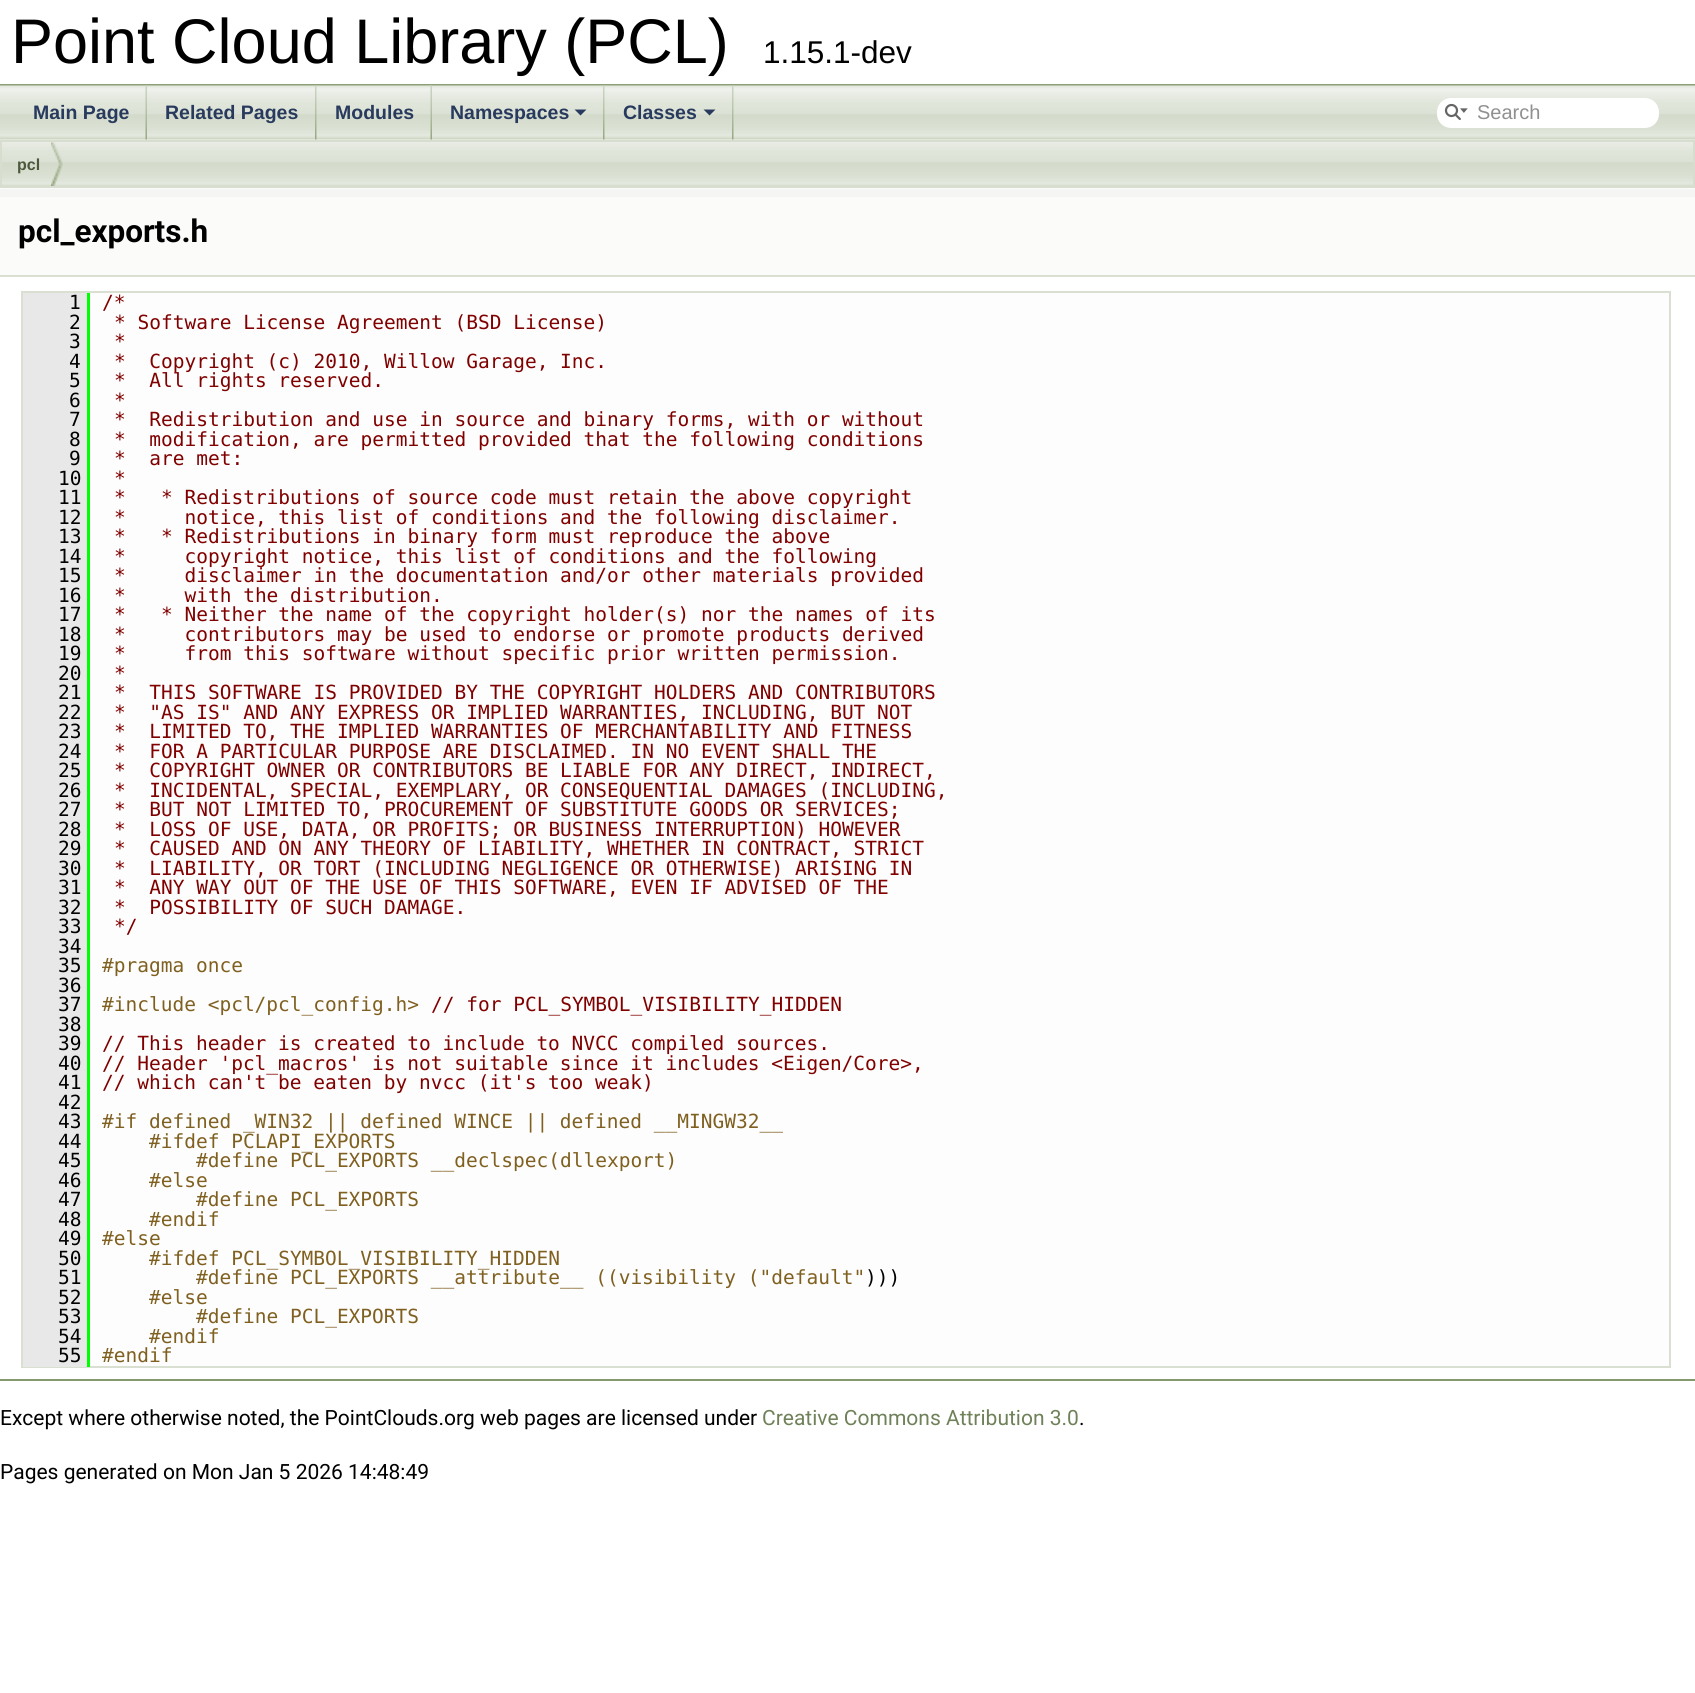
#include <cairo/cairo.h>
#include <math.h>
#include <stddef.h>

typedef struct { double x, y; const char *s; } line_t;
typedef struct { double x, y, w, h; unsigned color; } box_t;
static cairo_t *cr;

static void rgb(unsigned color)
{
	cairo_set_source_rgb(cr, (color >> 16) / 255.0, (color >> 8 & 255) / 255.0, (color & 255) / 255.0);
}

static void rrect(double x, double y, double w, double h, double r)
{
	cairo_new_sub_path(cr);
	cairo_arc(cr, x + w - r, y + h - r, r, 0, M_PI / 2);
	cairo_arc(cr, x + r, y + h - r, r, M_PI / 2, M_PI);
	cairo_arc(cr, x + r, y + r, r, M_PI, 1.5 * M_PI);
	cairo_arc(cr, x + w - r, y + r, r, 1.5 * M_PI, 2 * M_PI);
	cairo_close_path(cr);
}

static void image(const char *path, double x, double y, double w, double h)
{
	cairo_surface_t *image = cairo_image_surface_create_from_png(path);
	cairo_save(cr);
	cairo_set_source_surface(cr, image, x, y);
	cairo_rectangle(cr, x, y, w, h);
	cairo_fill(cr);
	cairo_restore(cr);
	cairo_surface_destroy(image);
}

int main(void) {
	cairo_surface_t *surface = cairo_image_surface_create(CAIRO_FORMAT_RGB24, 1695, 1693);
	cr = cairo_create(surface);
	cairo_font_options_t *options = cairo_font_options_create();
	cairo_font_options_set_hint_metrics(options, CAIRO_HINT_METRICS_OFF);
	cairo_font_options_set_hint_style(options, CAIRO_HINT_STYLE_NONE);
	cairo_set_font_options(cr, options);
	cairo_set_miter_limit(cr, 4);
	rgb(0xffffff);
	cairo_paint(cr);
	rgb(0x8da077);
	cairo_rectangle(cr, 0, 84, 1695, 2);
	cairo_fill(cr);
	image("img/5.png", 0, 139, 1695, 47);
	image("img/1.png", 0, 85, 1695, 55);
	image("img/2.png", 145, 85, 2, 55);
	image("img/3.png", 315, 85, 2, 55);
	image("img/2.png", 430, 85, 2, 55);
	image("img/3.png", 603, 85, 2, 55);
	rgb(0x283a5d);
	cairo_new_path(cr);
	cairo_move_to(cr, 574.5, 109.5);
	cairo_line_to(cr, 586.5, 109.5);
	cairo_line_to(cr, 580.5, 115.5);
	cairo_close_path(cr);
	cairo_fill(cr);
	image("img/3.png", 732, 85, 2, 55);
	cairo_new_path(cr);
	cairo_move_to(cr, 703.5, 109.5);
	cairo_line_to(cr, 715.5, 109.5);
	cairo_line_to(cr, 709.5, 115.5);
	cairo_close_path(cr);
	cairo_fill(cr);
	rgb(0xffffff);
	rrect(1437, 98, 222, 30, 14);
	cairo_fill(cr);
	image("img/4.png", 1444, 103, 24, 18);
	cairo_rectangle(cr, 1, 141, 1693, 46);
	rgb(0xd7decf);
	cairo_stroke(cr);
	image("img/6.png", 51, 142, 12, 44);
	{
		static const box_t items[] = {
			{0, 188, 1695, 87, 0xfbfcfa},
			{0, 189, 1695, 8, 0xf5f6f3},
			{0, 275, 1695, 2, 0xd9dfd1},
			{90, 293, 1579, 1073, 0xfcfdfc},
		};
		for (size_t i = 0; i < sizeof items / sizeof *items; i++) {
			rgb(items[i].color);
			cairo_rectangle(cr, items[i].x, items[i].y, items[i].w, items[i].h);
			cairo_fill(cr);
		}
	}
	cairo_rectangle(cr, 22, 292, 1648, 1075);
	rgb(0xd9dfd1);
	cairo_stroke(cr);
	{
		static const box_t items[] = {
			{23, 293, 64, 1074, 0xe8e8e8},
			{87, 293, 3, 1074, 0x00ff00},
			{0, 1379, 1695, 2, 0x84996c},
		};
		for (size_t i = 0; i < sizeof items / sizeof *items; i++) {
			rgb(items[i].color);
			cairo_rectangle(cr, items[i].x, items[i].y, items[i].w, items[i].h);
			cairo_fill(cr);
		}
	}
	cairo_select_font_face(cr, "Liberation Sans", CAIRO_FONT_SLANT_NORMAL, CAIRO_FONT_WEIGHT_NORMAL);
	cairo_set_font_size(cr, 63);
	rgb(0x000000);
	cairo_move_to(cr, 11, 63);
	cairo_show_text(cr, "Point Cloud Library (PCL)");
	cairo_set_font_size(cr, 31.5);
	cairo_move_to(cr, 763, 63);
	cairo_show_text(cr, "1.15.1-dev");
	cairo_select_font_face(cr, "Liberation Sans", CAIRO_FONT_SLANT_NORMAL, CAIRO_FONT_WEIGHT_BOLD);
	cairo_set_font_size(cr, 19.5);
	rgb(0x283a5d);
	{
		static const line_t items[] = {
			{33, 119, "Main Page"},
			{165, 119, "Related Pages"},
			{335, 119, "Modules"},
			{450, 119, "Namespaces"},
			{623, 119, "Classes"},
		};
		for (size_t i = 0; i < sizeof items / sizeof *items; i++) {
			cairo_move_to(cr, items[i].x, items[i].y);
			cairo_show_text(cr, items[i].s);
		}
	}
	cairo_select_font_face(cr, "Liberation Sans", CAIRO_FONT_SLANT_NORMAL, CAIRO_FONT_WEIGHT_NORMAL);
	cairo_set_font_size(cr, 20);
	rgb(0x909090);
	cairo_move_to(cr, 1477, 119);
	cairo_show_text(cr, "Search");
	cairo_select_font_face(cr, "Liberation Sans", CAIRO_FONT_SLANT_NORMAL, CAIRO_FONT_WEIGHT_BOLD);
	cairo_set_font_size(cr, 16);
	rgb(0x4c583d);
	cairo_move_to(cr, 17, 170);
	cairo_show_text(cr, "pcl");
	cairo_select_font_face(cr, "Roboto", CAIRO_FONT_SLANT_NORMAL, CAIRO_FONT_WEIGHT_BOLD);
	cairo_set_font_size(cr, 31.5);
	rgb(0x000000);
	cairo_move_to(cr, 18, 242);
	cairo_show_text(cr, "pcl_exports.h");
	cairo_select_font_face(cr, "DejaVu Sans Mono", CAIRO_FONT_SLANT_NORMAL, CAIRO_FONT_WEIGHT_NORMAL);
	cairo_set_font_size(cr, 19.5);
	cairo_move_to(cr, 69, 309);
	cairo_show_text(cr, "1");
	rgb(0x800000);
	cairo_move_to(cr, 102, 309);
	cairo_show_text(cr, "/*");
	rgb(0x000000);
	cairo_move_to(cr, 69, 329);
	cairo_show_text(cr, "2");
	rgb(0x800000);
	cairo_move_to(cr, 114, 329);
	cairo_show_text(cr, "* Software License Agreement (BSD License)");
	rgb(0x000000);
	cairo_move_to(cr, 69, 348);
	cairo_show_text(cr, "3");
	rgb(0x800000);
	cairo_move_to(cr, 114, 348);
	cairo_show_text(cr, "*");
	rgb(0x000000);
	cairo_move_to(cr, 69, 368);
	cairo_show_text(cr, "4");
	rgb(0x800000);
	cairo_move_to(cr, 114, 368);
	cairo_show_text(cr, "*  Copyright (c) 2010, Willow Garage, Inc.");
	rgb(0x000000);
	cairo_move_to(cr, 69, 387);
	cairo_show_text(cr, "5");
	rgb(0x800000);
	cairo_move_to(cr, 114, 387);
	cairo_show_text(cr, "*  All rights reserved.");
	rgb(0x000000);
	cairo_move_to(cr, 69, 407);
	cairo_show_text(cr, "6");
	rgb(0x800000);
	cairo_move_to(cr, 114, 407);
	cairo_show_text(cr, "*");
	rgb(0x000000);
	cairo_move_to(cr, 69, 426);
	cairo_show_text(cr, "7");
	rgb(0x800000);
	cairo_move_to(cr, 114, 426);
	cairo_show_text(cr, "*  Redistribution and use in source and binary forms, with or without");
	rgb(0x000000);
	cairo_move_to(cr, 69, 446);
	cairo_show_text(cr, "8");
	rgb(0x800000);
	cairo_move_to(cr, 114, 446);
	cairo_show_text(cr, "*  modification, are permitted provided that the following conditions");
	rgb(0x000000);
	cairo_move_to(cr, 69, 465);
	cairo_show_text(cr, "9");
	rgb(0x800000);
	cairo_move_to(cr, 114, 465);
	cairo_show_text(cr, "*  are met:");
	rgb(0x000000);
	cairo_move_to(cr, 58, 485);
	cairo_show_text(cr, "10");
	rgb(0x800000);
	cairo_move_to(cr, 114, 485);
	cairo_show_text(cr, "*");
	rgb(0x000000);
	cairo_move_to(cr, 58, 504);
	cairo_show_text(cr, "11");
	rgb(0x800000);
	cairo_move_to(cr, 114, 504);
	cairo_show_text(cr, "*   * Redistributions of source code must retain the above copyright");
	rgb(0x000000);
	cairo_move_to(cr, 58, 524);
	cairo_show_text(cr, "12");
	rgb(0x800000);
	cairo_move_to(cr, 114, 524);
	cairo_show_text(cr, "*     notice, this list of conditions and the following disclaimer.");
	rgb(0x000000);
	cairo_move_to(cr, 58, 543);
	cairo_show_text(cr, "13");
	rgb(0x800000);
	cairo_move_to(cr, 114, 543);
	cairo_show_text(cr, "*   * Redistributions in binary form must reproduce the above");
	rgb(0x000000);
	cairo_move_to(cr, 58, 563);
	cairo_show_text(cr, "14");
	rgb(0x800000);
	cairo_move_to(cr, 114, 563);
	cairo_show_text(cr, "*     copyright notice, this list of conditions and the following");
	rgb(0x000000);
	cairo_move_to(cr, 58, 582);
	cairo_show_text(cr, "15");
	rgb(0x800000);
	cairo_move_to(cr, 114, 582);
	cairo_show_text(cr, "*     disclaimer in the documentation and/or other materials provided");
	rgb(0x000000);
	cairo_move_to(cr, 58, 602);
	cairo_show_text(cr, "16");
	rgb(0x800000);
	cairo_move_to(cr, 114, 602);
	cairo_show_text(cr, "*     with the distribution.");
	rgb(0x000000);
	cairo_move_to(cr, 58, 621);
	cairo_show_text(cr, "17");
	rgb(0x800000);
	cairo_move_to(cr, 114, 621);
	cairo_show_text(cr, "*   * Neither the name of the copyright holder(s) nor the names of its");
	rgb(0x000000);
	cairo_move_to(cr, 58, 641);
	cairo_show_text(cr, "18");
	rgb(0x800000);
	cairo_move_to(cr, 114, 641);
	cairo_show_text(cr, "*     contributors may be used to endorse or promote products derived");
	rgb(0x000000);
	cairo_move_to(cr, 58, 660);
	cairo_show_text(cr, "19");
	rgb(0x800000);
	cairo_move_to(cr, 114, 660);
	cairo_show_text(cr, "*     from this software without specific prior written permission.");
	rgb(0x000000);
	cairo_move_to(cr, 58, 680);
	cairo_show_text(cr, "20");
	rgb(0x800000);
	cairo_move_to(cr, 114, 680);
	cairo_show_text(cr, "*");
	rgb(0x000000);
	cairo_move_to(cr, 58, 699);
	cairo_show_text(cr, "21");
	rgb(0x800000);
	cairo_move_to(cr, 114, 699);
	cairo_show_text(cr, "*  THIS SOFTWARE IS PROVIDED BY THE COPYRIGHT HOLDERS AND CONTRIBUTORS");
	rgb(0x000000);
	cairo_move_to(cr, 58, 719);
	cairo_show_text(cr, "22");
	rgb(0x800000);
	cairo_move_to(cr, 114, 719);
	cairo_show_text(cr, "*  \"AS IS\" AND ANY EXPRESS OR IMPLIED WARRANTIES, INCLUDING, BUT NOT");
	rgb(0x000000);
	cairo_move_to(cr, 58, 738);
	cairo_show_text(cr, "23");
	rgb(0x800000);
	cairo_move_to(cr, 114, 738);
	cairo_show_text(cr, "*  LIMITED TO, THE IMPLIED WARRANTIES OF MERCHANTABILITY AND FITNESS");
	rgb(0x000000);
	cairo_move_to(cr, 58, 758);
	cairo_show_text(cr, "24");
	rgb(0x800000);
	cairo_move_to(cr, 114, 758);
	cairo_show_text(cr, "*  FOR A PARTICULAR PURPOSE ARE DISCLAIMED. IN NO EVENT SHALL THE");
	rgb(0x000000);
	cairo_move_to(cr, 58, 777);
	cairo_show_text(cr, "25");
	rgb(0x800000);
	cairo_move_to(cr, 114, 777);
	cairo_show_text(cr, "*  COPYRIGHT OWNER OR CONTRIBUTORS BE LIABLE FOR ANY DIRECT, INDIRECT,");
	rgb(0x000000);
	cairo_move_to(cr, 58, 797);
	cairo_show_text(cr, "26");
	rgb(0x800000);
	cairo_move_to(cr, 114, 797);
	cairo_show_text(cr, "*  INCIDENTAL, SPECIAL, EXEMPLARY, OR CONSEQUENTIAL DAMAGES (INCLUDING,");
	rgb(0x000000);
	cairo_move_to(cr, 58, 816);
	cairo_show_text(cr, "27");
	rgb(0x800000);
	cairo_move_to(cr, 114, 816);
	cairo_show_text(cr, "*  BUT NOT LIMITED TO, PROCUREMENT OF SUBSTITUTE GOODS OR SERVICES;");
	rgb(0x000000);
	cairo_move_to(cr, 58, 836);
	cairo_show_text(cr, "28");
	rgb(0x800000);
	cairo_move_to(cr, 114, 836);
	cairo_show_text(cr, "*  LOSS OF USE, DATA, OR PROFITS; OR BUSINESS INTERRUPTION) HOWEVER");
	rgb(0x000000);
	cairo_move_to(cr, 58, 855);
	cairo_show_text(cr, "29");
	rgb(0x800000);
	cairo_move_to(cr, 114, 855);
	cairo_show_text(cr, "*  CAUSED AND ON ANY THEORY OF LIABILITY, WHETHER IN CONTRACT, STRICT");
	rgb(0x000000);
	cairo_move_to(cr, 58, 875);
	cairo_show_text(cr, "30");
	rgb(0x800000);
	cairo_move_to(cr, 114, 875);
	cairo_show_text(cr, "*  LIABILITY, OR TORT (INCLUDING NEGLIGENCE OR OTHERWISE) ARISING IN");
	rgb(0x000000);
	cairo_move_to(cr, 58, 894);
	cairo_show_text(cr, "31");
	rgb(0x800000);
	cairo_move_to(cr, 114, 894);
	cairo_show_text(cr, "*  ANY WAY OUT OF THE USE OF THIS SOFTWARE, EVEN IF ADVISED OF THE");
	rgb(0x000000);
	cairo_move_to(cr, 58, 914);
	cairo_show_text(cr, "32");
	rgb(0x800000);
	cairo_move_to(cr, 114, 914);
	cairo_show_text(cr, "*  POSSIBILITY OF SUCH DAMAGE.");
	rgb(0x000000);
	cairo_move_to(cr, 58, 933);
	cairo_show_text(cr, "33");
	rgb(0x800000);
	cairo_move_to(cr, 114, 933);
	cairo_show_text(cr, "*/");
	rgb(0x000000);
	cairo_move_to(cr, 58, 953);
	cairo_show_text(cr, "34");
	cairo_move_to(cr, 58, 972);
	cairo_show_text(cr, "35");
	rgb(0x806020);
	cairo_move_to(cr, 102, 972);
	cairo_show_text(cr, "#pragma once");
	rgb(0x000000);
	cairo_move_to(cr, 58, 992);
	cairo_show_text(cr, "36");
	cairo_move_to(cr, 58, 1011);
	cairo_show_text(cr, "37");
	rgb(0x806020);
	cairo_move_to(cr, 102, 1011);
	cairo_show_text(cr, "#include <pcl/pcl_config.h>");
	rgb(0x800000);
	cairo_move_to(cr, 431, 1011);
	cairo_show_text(cr, "// for PCL_SYMBOL_VISIBILITY_HIDDEN");
	rgb(0x000000);
	cairo_move_to(cr, 58, 1031);
	cairo_show_text(cr, "38");
	cairo_move_to(cr, 58, 1050);
	cairo_show_text(cr, "39");
	rgb(0x800000);
	cairo_move_to(cr, 102, 1050);
	cairo_show_text(cr, "// This header is created to include to NVCC compiled sources.");
	rgb(0x000000);
	cairo_move_to(cr, 58, 1070);
	cairo_show_text(cr, "40");
	rgb(0x800000);
	cairo_move_to(cr, 102, 1070);
	cairo_show_text(cr, "// Header 'pcl_macros' is not suitable since it includes <Eigen/Core>,");
	rgb(0x000000);
	cairo_move_to(cr, 58, 1089);
	cairo_show_text(cr, "41");
	rgb(0x800000);
	cairo_move_to(cr, 102, 1089);
	cairo_show_text(cr, "// which can't be eaten by nvcc (it's too weak)");
	rgb(0x000000);
	cairo_move_to(cr, 58, 1109);
	cairo_show_text(cr, "42");
	cairo_move_to(cr, 58, 1128);
	cairo_show_text(cr, "43");
	rgb(0x806020);
	cairo_move_to(cr, 102, 1128);
	cairo_show_text(cr, "#if defined _WIN32 || defined WINCE || defined __MINGW32__");
	rgb(0x000000);
	cairo_move_to(cr, 58, 1148);
	cairo_show_text(cr, "44");
	rgb(0x806020);
	cairo_move_to(cr, 149, 1148);
	cairo_show_text(cr, "#ifdef PCLAPI_EXPORTS");
	rgb(0x000000);
	cairo_move_to(cr, 58, 1167);
	cairo_show_text(cr, "45");
	rgb(0x806020);
	cairo_move_to(cr, 196, 1167);
	cairo_show_text(cr, "#define PCL_EXPORTS __declspec(dllexport)");
	rgb(0x000000);
	cairo_move_to(cr, 58, 1187);
	cairo_show_text(cr, "46");
	rgb(0x806020);
	cairo_move_to(cr, 149, 1187);
	cairo_show_text(cr, "#else");
	rgb(0x000000);
	cairo_move_to(cr, 58, 1206);
	cairo_show_text(cr, "47");
	rgb(0x806020);
	cairo_move_to(cr, 196, 1206);
	cairo_show_text(cr, "#define PCL_EXPORTS");
	rgb(0x000000);
	cairo_move_to(cr, 58, 1226);
	cairo_show_text(cr, "48");
	rgb(0x806020);
	cairo_move_to(cr, 149, 1226);
	cairo_show_text(cr, "#endif");
	rgb(0x000000);
	cairo_move_to(cr, 58, 1245);
	cairo_show_text(cr, "49");
	rgb(0x806020);
	cairo_move_to(cr, 102, 1245);
	cairo_show_text(cr, "#else");
	rgb(0x000000);
	cairo_move_to(cr, 58, 1265);
	cairo_show_text(cr, "50");
	rgb(0x806020);
	cairo_move_to(cr, 149, 1265);
	cairo_show_text(cr, "#ifdef PCL_SYMBOL_VISIBILITY_HIDDEN");
	rgb(0x000000);
	cairo_move_to(cr, 58, 1284);
	cairo_show_text(cr, "51");
	rgb(0x806020);
	cairo_move_to(cr, 196, 1284);
	cairo_show_text(cr, "#define PCL_EXPORTS __attribute__ ((visibility (\"default\"");
	rgb(0x000000);
	cairo_move_to(cr, 865, 1284);
	cairo_show_text(cr, ")))");
	cairo_move_to(cr, 58, 1304);
	cairo_show_text(cr, "52");
	rgb(0x806020);
	cairo_move_to(cr, 149, 1304);
	cairo_show_text(cr, "#else");
	rgb(0x000000);
	cairo_move_to(cr, 58, 1323);
	cairo_show_text(cr, "53");
	rgb(0x806020);
	cairo_move_to(cr, 196, 1323);
	cairo_show_text(cr, "#define PCL_EXPORTS");
	rgb(0x000000);
	cairo_move_to(cr, 58, 1343);
	cairo_show_text(cr, "54");
	rgb(0x806020);
	cairo_move_to(cr, 149, 1343);
	cairo_show_text(cr, "#endif");
	rgb(0x000000);
	cairo_move_to(cr, 58, 1362);
	cairo_show_text(cr, "55");
	rgb(0x806020);
	cairo_move_to(cr, 102, 1362);
	cairo_show_text(cr, "#endif");
	cairo_select_font_face(cr, "Roboto", CAIRO_FONT_SLANT_NORMAL, CAIRO_FONT_WEIGHT_NORMAL);
	cairo_set_font_size(cr, 21);
	rgb(0x000000);
	cairo_move_to(cr, 0, 1425);
	cairo_show_text(cr, "Except where otherwise noted, the PointClouds.org web pages are licensed under");
	rgb(0x6f8159);
	cairo_move_to(cr, 762, 1425);
	cairo_show_text(cr, "Creative Commons Attribution 3.0");
	rgb(0x000000);
	cairo_move_to(cr, 1079, 1425);
	cairo_show_text(cr, ".");
	cairo_move_to(cr, 0, 1479);
	cairo_show_text(cr, "Pages generated on Mon Jan 5 2026 14:48:49");
	cairo_surface_write_to_png(surface, "page.png");
	cairo_font_options_destroy(options);
	cairo_destroy(cr);
	cairo_surface_destroy(surface);
	return 0;
}
